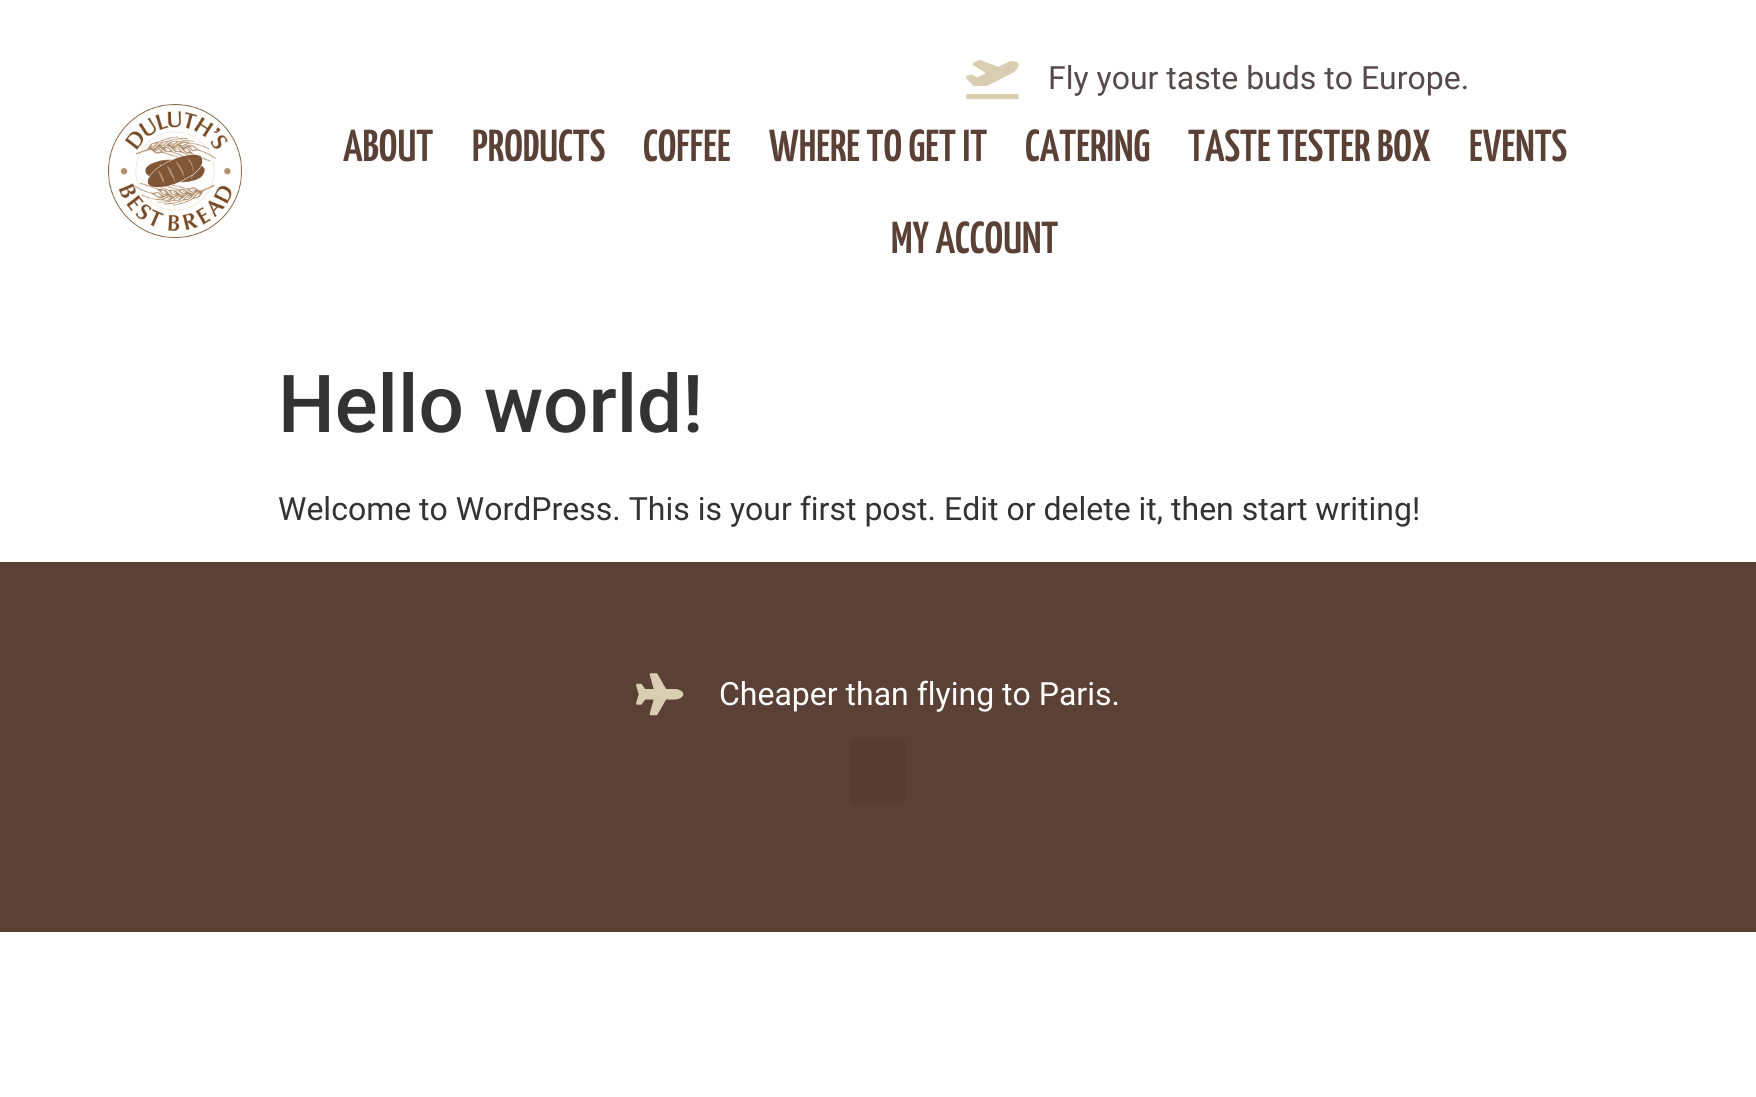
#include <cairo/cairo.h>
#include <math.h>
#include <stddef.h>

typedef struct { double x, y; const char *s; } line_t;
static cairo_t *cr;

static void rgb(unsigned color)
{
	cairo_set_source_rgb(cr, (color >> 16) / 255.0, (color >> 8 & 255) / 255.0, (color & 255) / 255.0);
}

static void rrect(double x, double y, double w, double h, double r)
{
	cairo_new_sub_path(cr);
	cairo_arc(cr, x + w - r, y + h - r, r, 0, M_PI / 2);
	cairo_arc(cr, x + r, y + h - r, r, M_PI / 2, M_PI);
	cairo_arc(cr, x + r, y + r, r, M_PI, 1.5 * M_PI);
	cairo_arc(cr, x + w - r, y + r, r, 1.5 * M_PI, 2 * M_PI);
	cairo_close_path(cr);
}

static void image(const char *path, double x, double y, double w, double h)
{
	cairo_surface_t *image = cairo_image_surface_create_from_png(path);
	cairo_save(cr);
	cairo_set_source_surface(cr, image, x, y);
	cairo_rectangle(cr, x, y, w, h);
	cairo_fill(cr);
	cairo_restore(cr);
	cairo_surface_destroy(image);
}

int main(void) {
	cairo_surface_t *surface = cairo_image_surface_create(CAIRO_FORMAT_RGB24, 1756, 1097);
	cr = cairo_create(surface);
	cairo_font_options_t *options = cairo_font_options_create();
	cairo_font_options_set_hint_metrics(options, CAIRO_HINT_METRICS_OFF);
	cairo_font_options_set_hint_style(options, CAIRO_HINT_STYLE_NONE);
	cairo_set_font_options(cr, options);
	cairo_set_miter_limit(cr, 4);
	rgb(0xffffff);
	cairo_paint(cr);
	image("img/1.png", 108, 104, 134, 134);
	image("img/2.png", 966, 59, 53, 41);
	rgb(0x5a4035);
	cairo_rectangle(cr, 0, 562, 1756, 370);
	cairo_fill(cr);
	image("img/3.png", 636, 673, 48, 43);
	rgb(0x563d32);
	rrect(850, 738, 56, 66, 6);
	cairo_fill(cr);
	cairo_select_font_face(cr, "Roboto", CAIRO_FONT_SLANT_NORMAL, CAIRO_FONT_WEIGHT_NORMAL);
	cairo_set_font_size(cr, 32);
	rgb(0x544a4a);
	cairo_move_to(cr, 1048, 89);
	cairo_show_text(cr, "Fly your taste buds to Europe.");
	cairo_select_font_face(cr, "Yanone Kaffeesatz SemiBold", CAIRO_FONT_SLANT_NORMAL, CAIRO_FONT_WEIGHT_NORMAL);
	cairo_set_font_size(cr, 44.75);
	rgb(0x5a4035);
	{
		static const line_t items[] = {
			{343, 161, "ABOUT"},
			{472, 161, "PRODUCTS"},
			{643, 161, "COFFEE"},
			{769, 161, "WHERE TO GET IT"},
			{1025, 161, "CATERING"},
			{1188, 161, "TASTE TESTER BOX"},
			{1469, 161, "EVENTS"},
			{891, 253, "MY ACCOUNT"},
		};
		for (size_t i = 0; i < sizeof items / sizeof *items; i++) {
			cairo_move_to(cr, items[i].x, items[i].y);
			cairo_show_text(cr, items[i].s);
		}
	}
	cairo_select_font_face(cr, "Roboto Medium", CAIRO_FONT_SLANT_NORMAL, CAIRO_FONT_WEIGHT_NORMAL);
	cairo_set_font_size(cr, 80);
	rgb(0x333333);
	cairo_move_to(cr, 278, 432);
	cairo_show_text(cr, "Hello world!");
	cairo_select_font_face(cr, "Roboto", CAIRO_FONT_SLANT_NORMAL, CAIRO_FONT_WEIGHT_NORMAL);
	cairo_set_font_size(cr, 32);
	cairo_move_to(cr, 278, 520);
	cairo_show_text(cr, "Welcome to WordPress. This is your first post. Edit or delete it, then start writing!");
	rgb(0xffffff);
	cairo_move_to(cr, 719, 705);
	cairo_show_text(cr, "Cheaper than flying to Paris.");
	cairo_surface_write_to_png(surface, "page.png");
	cairo_font_options_destroy(options);
	cairo_destroy(cr);
	cairo_surface_destroy(surface);
	return 0;
}
